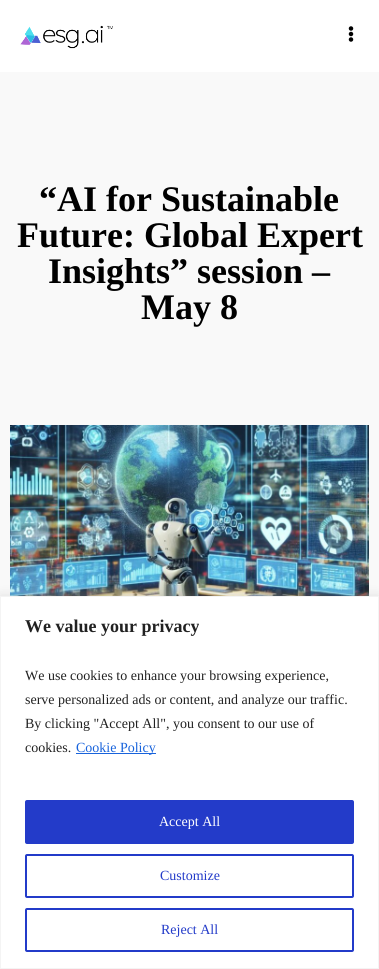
#include <cairo/cairo.h>
#include <math.h>
#include <stddef.h>

typedef struct { double x, y; const char *s; } line_t;
static cairo_t *cr;

static void rgb(unsigned color)
{
	cairo_set_source_rgb(cr, (color >> 16) / 255.0, (color >> 8 & 255) / 255.0, (color & 255) / 255.0);
}

static void rrect(double x, double y, double w, double h, double r)
{
	cairo_new_sub_path(cr);
	cairo_arc(cr, x + w - r, y + h - r, r, 0, M_PI / 2);
	cairo_arc(cr, x + r, y + h - r, r, M_PI / 2, M_PI);
	cairo_arc(cr, x + r, y + r, r, M_PI, 1.5 * M_PI);
	cairo_arc(cr, x + w - r, y + r, r, 1.5 * M_PI, 2 * M_PI);
	cairo_close_path(cr);
}

static void soft_shadow(double x, double y, double w, double h, double r, double blur, double alpha)
{
	cairo_push_group_with_content(cr, CAIRO_CONTENT_ALPHA);
	cairo_set_operator(cr, CAIRO_OPERATOR_SOURCE);
	for (int i = 15; i >= -15 && fmin(w, h) + blur * i / 3 > 0; i -= 2) {
		double e = blur * i / 6;
		cairo_set_source_rgba(cr, 0, 0, 0, alpha * erfc((i - 1) / 8.5) / 2);
		rrect(x - e, y - e, w + 2 * e, h + 2 * e, fmax(0, fmin(r + e + blur * .6, fmin(w, h) / 2 + e)));
		cairo_fill(cr);
	}
	cairo_pattern_t *soft = cairo_pop_group(cr);
	cairo_mask(cr, soft);
	cairo_pattern_destroy(soft);
}

static void image(const char *path, double x, double y, double w, double h)
{
	cairo_surface_t *image = cairo_image_surface_create_from_png(path);
	cairo_save(cr);
	cairo_set_source_surface(cr, image, x, y);
	cairo_rectangle(cr, x, y, w, h);
	cairo_fill(cr);
	cairo_restore(cr);
	cairo_surface_destroy(image);
}

int main(void) {
	cairo_surface_t *surface = cairo_image_surface_create(CAIRO_FORMAT_RGB24, 379, 969);
	cr = cairo_create(surface);
	cairo_font_options_t *options = cairo_font_options_create();
	cairo_font_options_set_hint_metrics(options, CAIRO_HINT_METRICS_OFF);
	cairo_font_options_set_hint_style(options, CAIRO_HINT_STYLE_NONE);
	cairo_set_font_options(cr, options);
	cairo_set_miter_limit(cr, 4);
	rgb(0xf9f9f9);
	cairo_paint(cr);
	rgb(0xffffff);
	cairo_rectangle(cr, 0, 0, 379, 72);
	cairo_fill(cr);
	image("img/1.png", 20, 25, 93, 24);
	image("img/2.png", 348, 26, 6, 16);
	image("img/3.png", 10, 425, 359, 171);
	rgb(0xacabab);
	soft_shadow(0, 595, 379, 373, 0, 5, 0.3);
	rgb(0xffffff);
	cairo_rectangle(cr, 0.5, 596.5, 378, 372);
	cairo_fill_preserve(cr);
	rgb(0xf4f4f4);
	cairo_set_line_width(cr, 1);
	cairo_stroke(cr);
	rgb(0x1863dc);
	cairo_rectangle(cr, 76, 753, 80, 1);
	cairo_fill(cr);
	rgb(0x233bc9);
	rrect(26, 801, 327, 42, 1);
	cairo_fill_preserve(cr);
	cairo_set_line_width(cr, 2);
	cairo_stroke(cr);
	rrect(26, 855, 327, 42, 1);
	cairo_stroke(cr);
	rrect(26, 909, 327, 42, 1);
	cairo_stroke(cr);
	cairo_select_font_face(cr, "Liberation Serif", CAIRO_FONT_SLANT_NORMAL, CAIRO_FONT_WEIGHT_BOLD);
	cairo_set_font_size(cr, 36);
	rgb(0x000000);
	{
		static const line_t items[] = {
			{39, 211, "“AI for Sustainable"},
			{17, 247, "Future: Global Expert"},
			{48, 283, "Insights” session –"},
			{141, 319, "May 8"},
		};
		for (size_t i = 0; i < sizeof items / sizeof *items; i++) {
			cairo_move_to(cr, items[i].x, items[i].y);
			cairo_show_text(cr, items[i].s);
		}
	}
	cairo_set_font_size(cr, 18);
	rgb(0x212121);
	cairo_move_to(cr, 25, 632);
	cairo_show_text(cr, "We value your privacy");
	cairo_select_font_face(cr, "Liberation Serif", CAIRO_FONT_SLANT_NORMAL, CAIRO_FONT_WEIGHT_NORMAL);
	cairo_set_font_size(cr, 14);
	{
		static const line_t items[] = {
			{25, 680, "We use cookies to enhance your browsing experience,"},
			{25, 704, "serve personalized ads or content, and analyze our traffic."},
			{25, 728, "By clicking \"Accept All\", you consent to our use of"},
			{25, 752, "cookies."},
		};
		for (size_t i = 0; i < sizeof items / sizeof *items; i++) {
			cairo_move_to(cr, items[i].x, items[i].y);
			cairo_show_text(cr, items[i].s);
		}
	}
	rgb(0x1863dc);
	cairo_move_to(cr, 76, 752);
	cairo_show_text(cr, "Cookie Policy");
	rgb(0xffffff);
	cairo_move_to(cr, 159, 826);
	cairo_show_text(cr, "Accept All");
	rgb(0x233bc9);
	cairo_move_to(cr, 160, 880);
	cairo_show_text(cr, "Customize");
	cairo_move_to(cr, 161, 934);
	cairo_show_text(cr, "Reject All");
	cairo_surface_write_to_png(surface, "page.png");
	cairo_font_options_destroy(options);
	cairo_destroy(cr);
	cairo_surface_destroy(surface);
	return 0;
}
